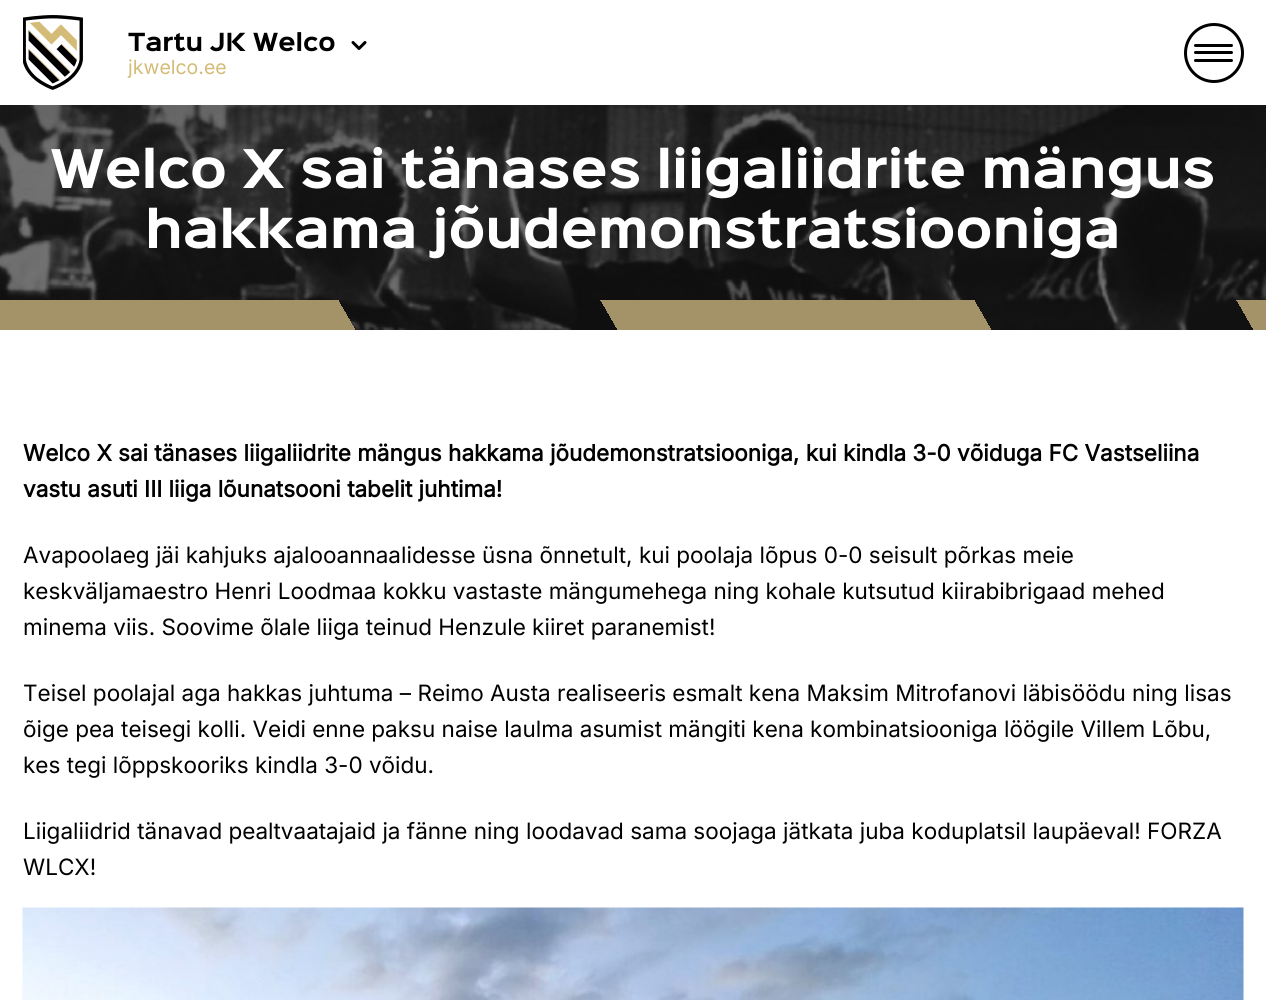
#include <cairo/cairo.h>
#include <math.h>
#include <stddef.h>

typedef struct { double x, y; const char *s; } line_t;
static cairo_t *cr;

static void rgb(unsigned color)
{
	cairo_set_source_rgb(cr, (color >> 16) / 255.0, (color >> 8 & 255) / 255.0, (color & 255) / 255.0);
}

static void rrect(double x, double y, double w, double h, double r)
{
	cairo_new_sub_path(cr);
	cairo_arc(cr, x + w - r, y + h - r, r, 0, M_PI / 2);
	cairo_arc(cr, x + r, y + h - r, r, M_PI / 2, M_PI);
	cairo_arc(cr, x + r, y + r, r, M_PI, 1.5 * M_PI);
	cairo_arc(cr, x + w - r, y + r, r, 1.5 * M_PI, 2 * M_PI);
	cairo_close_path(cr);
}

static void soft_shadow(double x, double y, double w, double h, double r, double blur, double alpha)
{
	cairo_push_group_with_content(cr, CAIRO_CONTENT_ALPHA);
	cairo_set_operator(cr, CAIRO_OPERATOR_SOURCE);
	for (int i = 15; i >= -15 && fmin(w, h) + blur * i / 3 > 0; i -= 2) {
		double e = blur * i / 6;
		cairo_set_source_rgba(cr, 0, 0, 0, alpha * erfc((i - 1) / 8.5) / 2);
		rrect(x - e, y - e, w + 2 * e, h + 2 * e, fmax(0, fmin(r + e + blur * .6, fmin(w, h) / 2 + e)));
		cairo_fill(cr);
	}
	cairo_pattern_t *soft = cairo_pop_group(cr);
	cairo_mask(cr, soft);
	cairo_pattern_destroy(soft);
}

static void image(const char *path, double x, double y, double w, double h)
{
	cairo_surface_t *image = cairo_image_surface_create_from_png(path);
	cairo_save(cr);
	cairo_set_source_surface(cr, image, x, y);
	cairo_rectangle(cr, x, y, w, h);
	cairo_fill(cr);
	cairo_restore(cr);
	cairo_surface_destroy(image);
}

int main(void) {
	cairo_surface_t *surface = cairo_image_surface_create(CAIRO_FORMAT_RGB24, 1266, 1000);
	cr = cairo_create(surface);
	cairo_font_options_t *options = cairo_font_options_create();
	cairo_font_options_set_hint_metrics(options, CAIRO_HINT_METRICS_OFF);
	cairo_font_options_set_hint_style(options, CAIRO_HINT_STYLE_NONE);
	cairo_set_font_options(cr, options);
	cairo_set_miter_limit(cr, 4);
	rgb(0xffffff);
	cairo_paint(cr);
	image("img/2.png", 0, 105, 1266, 225);
	cairo_save(cr);
	cairo_rectangle(cr, 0, 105, 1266, 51);
	cairo_clip(cr);
	rgb(0x000000);
	soft_shadow(0, 36, 1266, 105, 0, 18, 0.1);
	cairo_restore(cr);
	image("img/1.png", 23, 15, 60, 75);
	cairo_new_path(cr);
	cairo_move_to(cr, 353, 42.5);
	cairo_line_to(cr, 359, 48.5);
	cairo_line_to(cr, 365, 42.5);
	rgb(0x000000);
	cairo_set_line_width(cr, 3);
	cairo_set_line_cap(cr, CAIRO_LINE_CAP_ROUND);
	cairo_set_line_join(cr, CAIRO_LINE_JOIN_ROUND);
	cairo_stroke(cr);
	cairo_arc(cr, 1214, 53, 28.5, 0, 2 * M_PI);
	cairo_set_line_cap(cr, CAIRO_LINE_CAP_BUTT);
	cairo_set_line_join(cr, CAIRO_LINE_JOIN_MITER);
	cairo_stroke(cr);
	rrect(1194, 44, 39, 3, 1.5);
	cairo_fill(cr);
	rrect(1194, 51, 39, 3, 1.5);
	cairo_fill(cr);
	rrect(1194, 59, 39, 3, 1.5);
	cairo_fill(cr);
	image("img/3.png", 22, 907, 1222, 93);
	cairo_select_font_face(cr, "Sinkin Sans", CAIRO_FONT_SLANT_NORMAL, CAIRO_FONT_WEIGHT_BOLD);
	cairo_set_font_size(cr, 22.5);
	cairo_move_to(cr, 128, 51);
	cairo_show_text(cr, "Tartu JK Welco");
	cairo_select_font_face(cr, "Inter", CAIRO_FONT_SLANT_NORMAL, CAIRO_FONT_WEIGHT_NORMAL);
	cairo_set_font_size(cr, 19.5);
	rgb(0xd4bb77);
	cairo_move_to(cr, 128, 74);
	cairo_show_text(cr, "jkwelco.ee");
	cairo_select_font_face(cr, "Sinkin Sans", CAIRO_FONT_SLANT_NORMAL, CAIRO_FONT_WEIGHT_BOLD);
	cairo_set_font_size(cr, 48);
	rgb(0xffffff);
	cairo_move_to(cr, 50, 188);
	cairo_show_text(cr, "Welco X sai tänases liigaliidrite mängus");
	cairo_move_to(cr, 145, 248);
	cairo_show_text(cr, "hakkama jõudemonstratsiooniga");
	cairo_select_font_face(cr, "Inter", CAIRO_FONT_SLANT_NORMAL, CAIRO_FONT_WEIGHT_BOLD);
	cairo_set_font_size(cr, 22.5);
	rgb(0x000000);
	cairo_move_to(cr, 23, 461);
	cairo_show_text(cr, "Welco X sai tänases liigaliidrite mängus hakkama jõudemonstratsiooniga, kui kindla 3-0 võiduga FC Vastseliina");
	cairo_move_to(cr, 23, 497);
	cairo_show_text(cr, "vastu asuti III liiga lõunatsooni tabelit juhtima!");
	cairo_select_font_face(cr, "Inter", CAIRO_FONT_SLANT_NORMAL, CAIRO_FONT_WEIGHT_NORMAL);
	{
		static const line_t items[] = {
			{23, 563, "Avapoolaeg jäi kahjuks ajalooannaalidesse üsna õnnetult, kui poolaja lõpus 0-0 seisult põrkas meie"},
			{23, 599, "keskväljamaestro Henri Loodmaa kokku vastaste mängumehega ning kohale kutsutud kiirabibrigaad mehed"},
			{23, 635, "minema viis. Soovime õlale liiga teinud Henzule kiiret paranemist!"},
			{23, 701, "Teisel poolajal aga hakkas juhtuma – Reimo Austa realiseeris esmalt kena Maksim Mitrofanovi läbisöödu ning lisas"},
			{23, 737, "õige pea teisegi kolli. Veidi enne paksu naise laulma asumist mängiti kena kombinatsiooniga löögile Villem Lõbu,"},
			{23, 773, "kes tegi lõppskooriks kindla 3-0 võidu."},
			{23, 839, "Liigaliidrid tänavad pealtvaatajaid ja fänne ning loodavad sama soojaga jätkata juba koduplatsil laupäeval! FORZA"},
			{23, 875, "WLCX!"},
		};
		for (size_t i = 0; i < sizeof items / sizeof *items; i++) {
			cairo_move_to(cr, items[i].x, items[i].y);
			cairo_show_text(cr, items[i].s);
		}
	}
	cairo_surface_write_to_png(surface, "page.png");
	cairo_font_options_destroy(options);
	cairo_destroy(cr);
	cairo_surface_destroy(surface);
	return 0;
}
